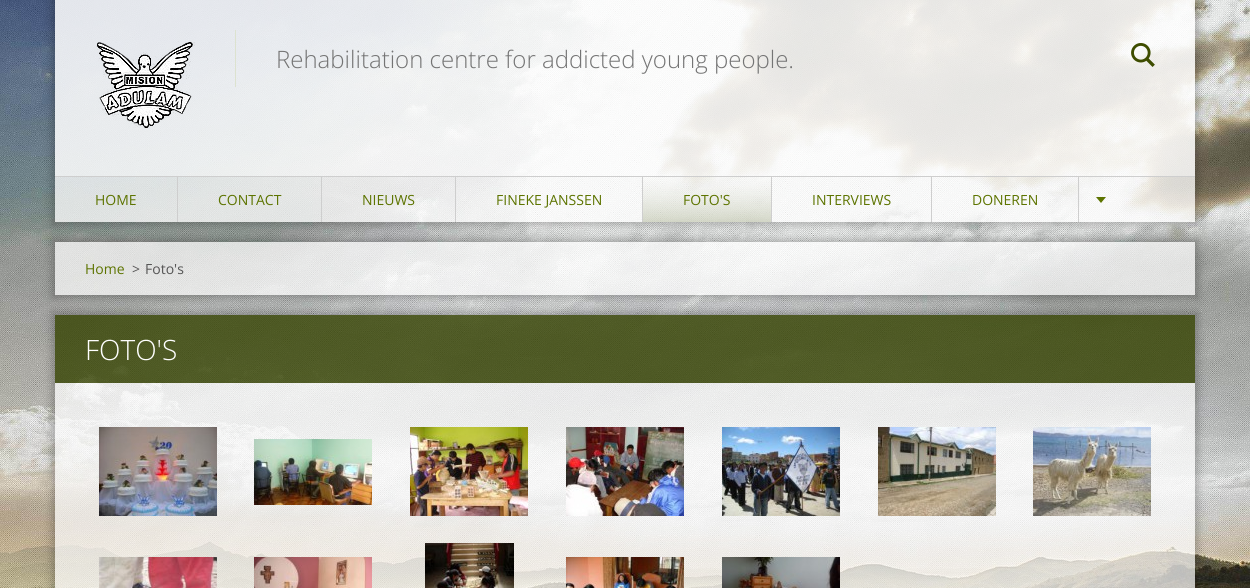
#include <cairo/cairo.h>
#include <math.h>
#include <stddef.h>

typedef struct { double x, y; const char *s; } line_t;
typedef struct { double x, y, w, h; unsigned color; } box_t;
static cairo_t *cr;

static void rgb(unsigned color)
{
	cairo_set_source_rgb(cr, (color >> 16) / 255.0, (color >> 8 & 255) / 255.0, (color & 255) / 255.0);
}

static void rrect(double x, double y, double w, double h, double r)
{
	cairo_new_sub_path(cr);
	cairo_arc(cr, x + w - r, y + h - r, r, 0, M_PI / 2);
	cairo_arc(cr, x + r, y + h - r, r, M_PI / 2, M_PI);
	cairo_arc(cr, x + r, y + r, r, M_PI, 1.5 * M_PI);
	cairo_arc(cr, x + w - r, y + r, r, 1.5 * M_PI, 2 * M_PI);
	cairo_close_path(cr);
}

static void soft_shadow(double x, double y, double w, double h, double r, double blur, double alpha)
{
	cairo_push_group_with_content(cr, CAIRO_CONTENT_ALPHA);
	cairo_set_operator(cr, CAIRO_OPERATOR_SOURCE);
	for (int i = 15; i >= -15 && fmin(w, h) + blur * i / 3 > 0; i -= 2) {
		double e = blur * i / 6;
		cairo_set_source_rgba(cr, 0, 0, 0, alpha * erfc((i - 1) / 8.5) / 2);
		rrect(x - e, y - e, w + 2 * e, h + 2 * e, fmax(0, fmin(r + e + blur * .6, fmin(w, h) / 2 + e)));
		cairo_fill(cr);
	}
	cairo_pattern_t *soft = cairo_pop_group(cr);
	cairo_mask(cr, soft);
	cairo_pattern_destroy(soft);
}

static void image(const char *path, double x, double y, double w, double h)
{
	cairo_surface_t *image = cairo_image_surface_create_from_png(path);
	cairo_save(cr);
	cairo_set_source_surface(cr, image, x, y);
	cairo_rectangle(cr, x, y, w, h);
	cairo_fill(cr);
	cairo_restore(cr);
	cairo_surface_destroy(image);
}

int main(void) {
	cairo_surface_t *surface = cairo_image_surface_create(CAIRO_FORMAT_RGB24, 1250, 588);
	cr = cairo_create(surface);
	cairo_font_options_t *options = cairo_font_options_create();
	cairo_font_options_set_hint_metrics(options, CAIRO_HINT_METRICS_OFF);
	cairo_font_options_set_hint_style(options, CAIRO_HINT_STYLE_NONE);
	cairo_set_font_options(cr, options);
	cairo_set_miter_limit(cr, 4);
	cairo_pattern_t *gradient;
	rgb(0xffffff);
	cairo_paint(cr);
	image("img/1.png", 0, 0, 1250, 588);
	cairo_save(cr);
	cairo_set_fill_rule(cr, CAIRO_FILL_RULE_EVEN_ODD);
	cairo_new_path(cr);
	cairo_move_to(cr, 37, 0);
	cairo_line_to(cr, 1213, 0);
	cairo_line_to(cr, 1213, 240);
	cairo_line_to(cr, 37, 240);
	cairo_close_path(cr);
	cairo_move_to(cr, 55, 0);
	cairo_line_to(cr, 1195, 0);
	cairo_line_to(cr, 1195, 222);
	cairo_line_to(cr, 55, 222);
	cairo_close_path(cr);
	cairo_clip(cr);
	rgb(0x000000);
	soft_shadow(52, -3, 1146, 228, 0, 4.5, 0.25);
	cairo_restore(cr);
	cairo_set_source_rgba(cr, 1, 1, 1, 0.85);
	cairo_rectangle(cr, 55, 0, 1140, 176);
	cairo_fill(cr);
	image("img/2.png", 96, 40, 99, 88);
	rgb(0xdce2cf);
	cairo_rectangle(cr, 235, 30, 1, 57);
	cairo_fill(cr);
	image("img/3.png", 1131, 43, 24, 24);
	rgb(0xcecece);
	cairo_rectangle(cr, 55, 176, 1140, 1);
	cairo_fill(cr);
	cairo_set_source_rgba(cr, 1, 1, 1, 0.75);
	cairo_rectangle(cr, 55, 177, 1140, 45);
	cairo_fill(cr);
	rgb(0xcecece);
	cairo_rectangle(cr, 177, 177, 1, 45);
	cairo_fill(cr);
	cairo_rectangle(cr, 321, 177, 1, 45);
	cairo_fill(cr);
	cairo_rectangle(cr, 455, 177, 1, 45);
	cairo_fill(cr);
	cairo_rectangle(cr, 642, 177, 1, 45);
	cairo_fill(cr);
	gradient = cairo_pattern_create_linear(707, 177, 707, 222);
	cairo_pattern_add_color_stop_rgba(gradient, 0, 1, 1, 1, 0.1);
	cairo_pattern_add_color_stop_rgba(gradient, 1, 0.243, 0.302, 0, 0.2);
	cairo_set_source(cr, gradient);
	cairo_pattern_destroy(gradient);
	cairo_rectangle(cr, 643, 177, 128, 45);
	cairo_fill(cr);
	{
		static const box_t items[] = {
			{771, 177, 1, 45, 0xcecece},
			{931, 177, 1, 45, 0xcecece},
			{1078, 177, 1, 45, 0xcecece},
		};
		for (size_t i = 0; i < sizeof items / sizeof *items; i++) {
			rgb(items[i].color);
			cairo_rectangle(cr, items[i].x, items[i].y, items[i].w, items[i].h);
			cairo_fill(cr);
		}
	}
	rgb(0x5d7400);
	cairo_new_path(cr);
	cairo_move_to(cr, 1096, 197);
	cairo_line_to(cr, 1106, 197);
	cairo_line_to(cr, 1101, 203);
	cairo_close_path(cr);
	cairo_fill(cr);
	cairo_save(cr);
	cairo_set_fill_rule(cr, CAIRO_FILL_RULE_EVEN_ODD);
	cairo_new_path(cr);
	cairo_move_to(cr, 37, 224);
	cairo_line_to(cr, 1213, 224);
	cairo_line_to(cr, 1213, 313);
	cairo_line_to(cr, 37, 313);
	cairo_close_path(cr);
	cairo_move_to(cr, 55, 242);
	cairo_line_to(cr, 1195, 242);
	cairo_line_to(cr, 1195, 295);
	cairo_line_to(cr, 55, 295);
	cairo_close_path(cr);
	cairo_clip(cr);
	rgb(0x000000);
	soft_shadow(52, 239, 1146, 59, 0, 4.5, 0.25);
	cairo_restore(cr);
	cairo_set_source_rgba(cr, 1, 1, 1, 0.7);
	cairo_rectangle(cr, 55, 242, 1140, 53);
	cairo_fill(cr);
	cairo_save(cr);
	cairo_set_fill_rule(cr, CAIRO_FILL_RULE_EVEN_ODD);
	cairo_new_path(cr);
	cairo_move_to(cr, 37, 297);
	cairo_line_to(cr, 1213, 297);
	cairo_line_to(cr, 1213, 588);
	cairo_line_to(cr, 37, 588);
	cairo_close_path(cr);
	cairo_move_to(cr, 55, 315);
	cairo_line_to(cr, 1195, 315);
	cairo_line_to(cr, 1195, 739);
	cairo_line_to(cr, 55, 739);
	cairo_close_path(cr);
	cairo_clip(cr);
	rgb(0x000000);
	soft_shadow(52, 312, 1146, 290, 0, 4.5, 0.25);
	cairo_restore(cr);
	cairo_set_source_rgba(cr, 0.208, 0.259, 0, 0.8);
	cairo_rectangle(cr, 55, 315, 1140, 68);
	cairo_fill(cr);
	cairo_set_source_rgba(cr, 1, 1, 1, 0.7);
	cairo_rectangle(cr, 55, 383, 1140, 205);
	cairo_fill(cr);
	image("img/4.png", 99, 427, 118, 89);
	image("img/5.png", 254, 439, 118, 66);
	image("img/6.png", 410, 427, 118, 89);
	image("img/7.png", 566, 427, 118, 89);
	image("img/8.png", 722, 427, 118, 89);
	image("img/9.png", 878, 427, 118, 89);
	image("img/10.png", 1033, 427, 118, 89);
	image("img/11.png", 99, 557, 118, 31);
	image("img/12.png", 254, 557, 118, 31);
	image("img/13.png", 425, 543, 89, 45);
	image("img/14.png", 566, 557, 118, 31);
	image("img/15.png", 722, 557, 118, 31);
	cairo_select_font_face(cr, "Open Sans Light", CAIRO_FONT_SLANT_NORMAL, CAIRO_FONT_WEIGHT_NORMAL);
	cairo_set_font_size(cr, 24);
	rgb(0x747474);
	cairo_move_to(cr, 276, 68);
	cairo_show_text(cr, "Rehabilitation centre for addicted young people.");
	cairo_select_font_face(cr, "Open Sans", CAIRO_FONT_SLANT_NORMAL, CAIRO_FONT_WEIGHT_NORMAL);
	cairo_set_font_size(cr, 14);
	rgb(0x5d7400);
	{
		static const line_t items[] = {
			{95, 205, "HOME"},
			{218, 205, "CONTACT"},
			{362, 205, "NIEUWS"},
			{496, 205, "FINEKE JANSSEN"},
			{683, 205, "FOTO'S"},
			{812, 205, "INTERVIEWS"},
			{972, 205, "DONEREN"},
			{85, 274, "Home"},
		};
		for (size_t i = 0; i < sizeof items / sizeof *items; i++) {
			cairo_move_to(cr, items[i].x, items[i].y);
			cairo_show_text(cr, items[i].s);
		}
	}
	rgb(0x555555);
	cairo_move_to(cr, 132, 274);
	cairo_show_text(cr, ">");
	cairo_move_to(cr, 145, 274);
	cairo_show_text(cr, "Foto's");
	cairo_select_font_face(cr, "Open Sans Light", CAIRO_FONT_SLANT_NORMAL, CAIRO_FONT_WEIGHT_NORMAL);
	cairo_set_font_size(cr, 28);
	rgb(0xffffff);
	cairo_move_to(cr, 85, 360);
	cairo_show_text(cr, "FOTO'S");
	cairo_surface_write_to_png(surface, "page.png");
	cairo_font_options_destroy(options);
	cairo_destroy(cr);
	cairo_surface_destroy(surface);
	return 0;
}
